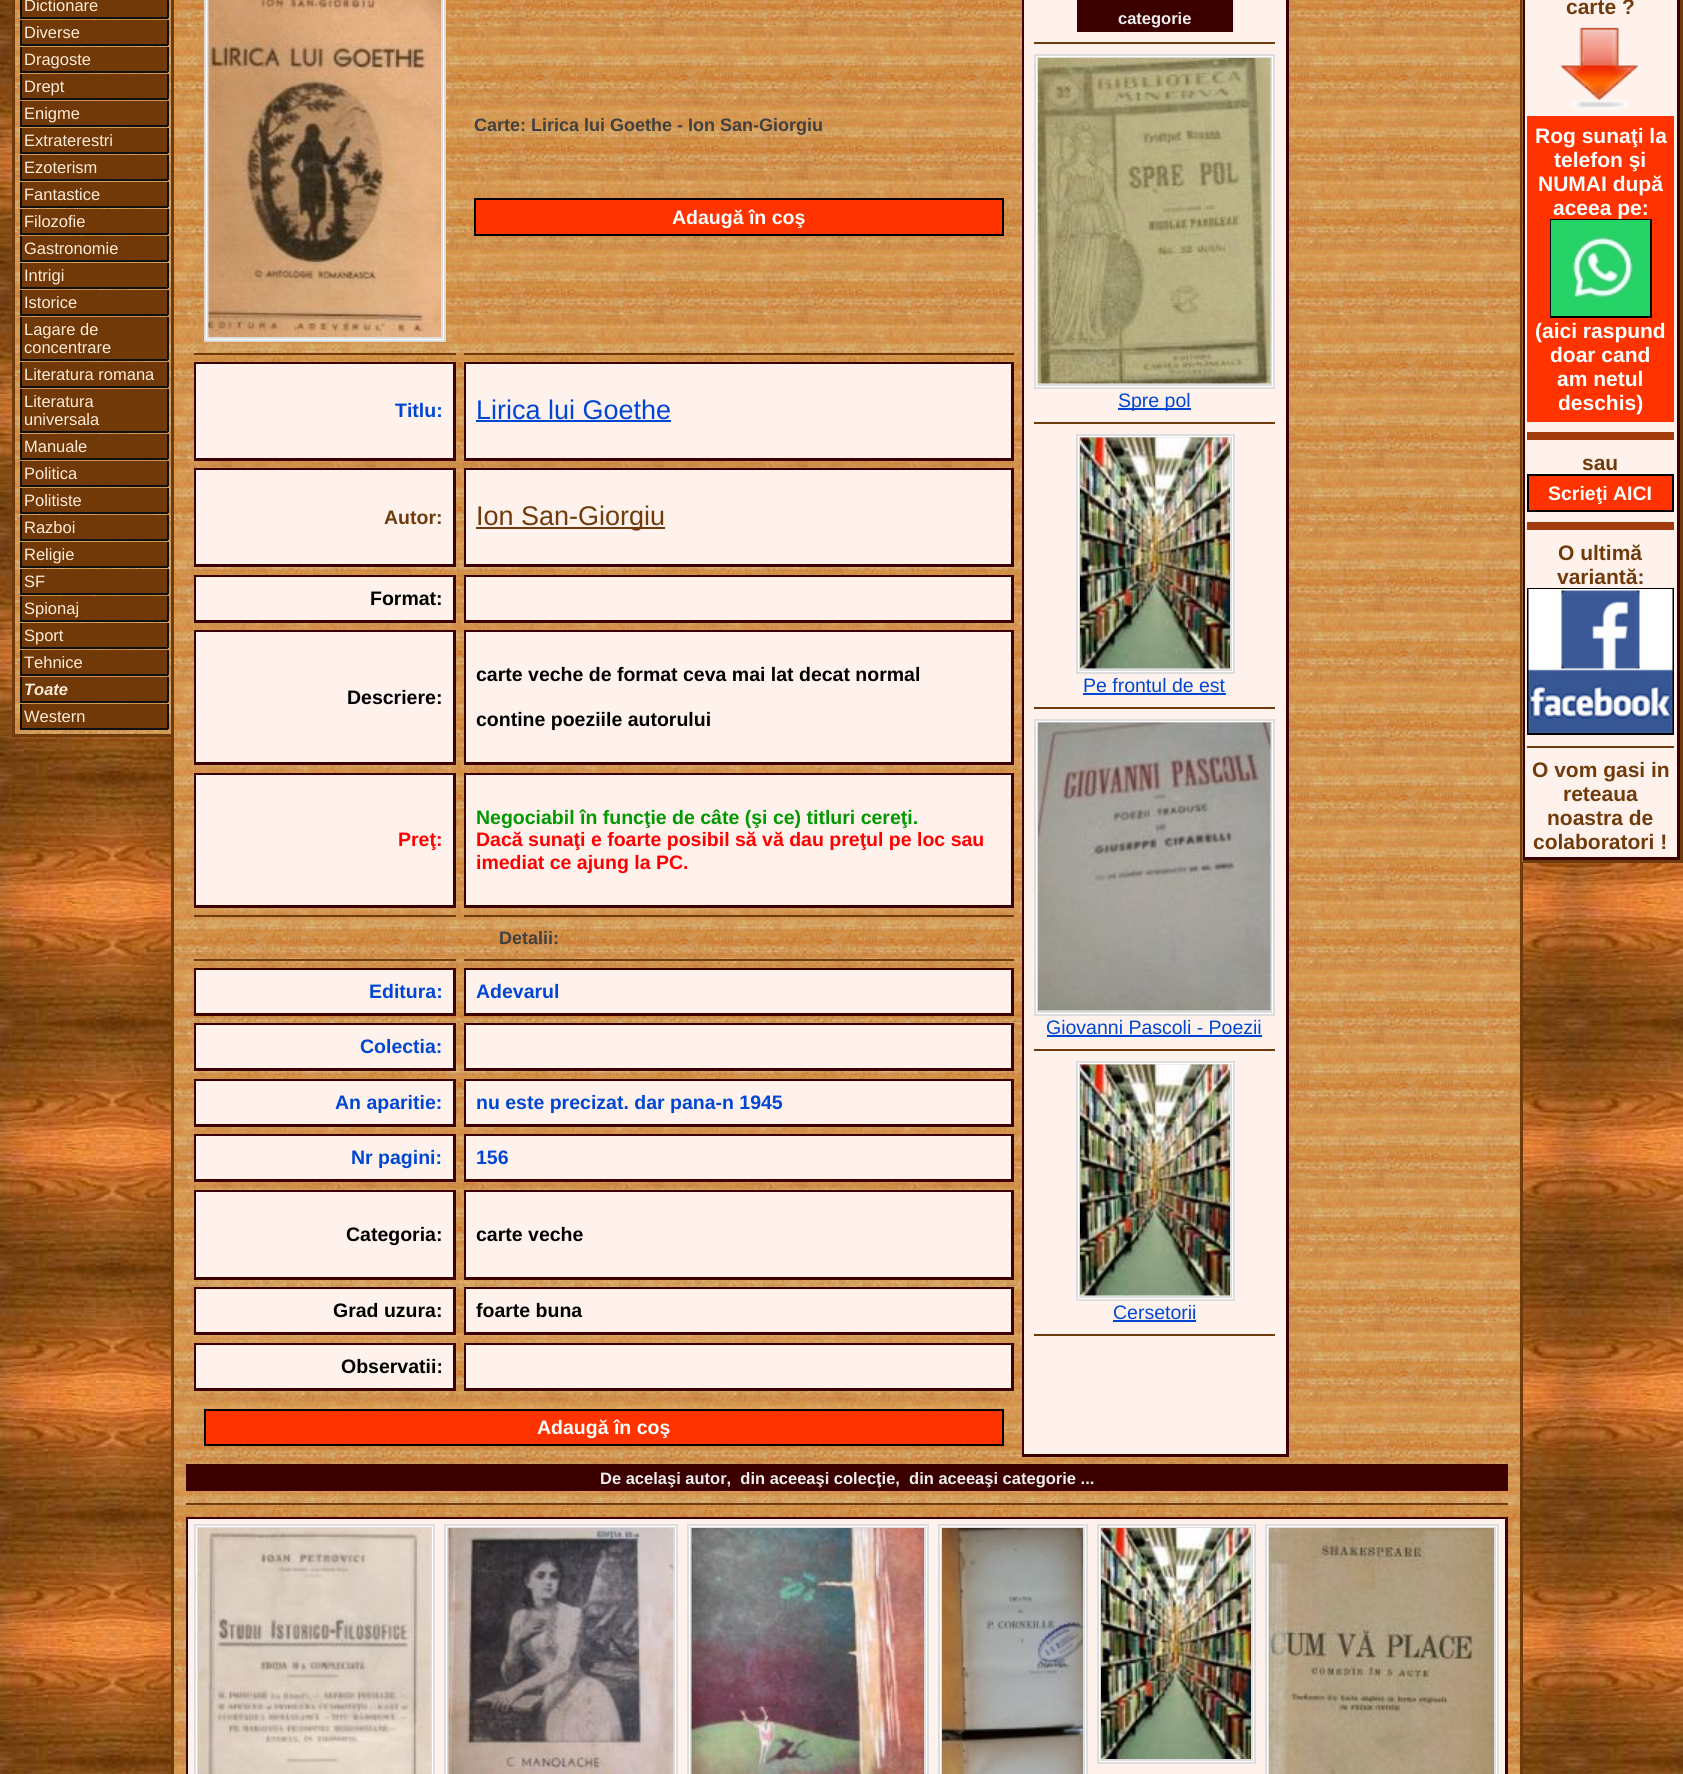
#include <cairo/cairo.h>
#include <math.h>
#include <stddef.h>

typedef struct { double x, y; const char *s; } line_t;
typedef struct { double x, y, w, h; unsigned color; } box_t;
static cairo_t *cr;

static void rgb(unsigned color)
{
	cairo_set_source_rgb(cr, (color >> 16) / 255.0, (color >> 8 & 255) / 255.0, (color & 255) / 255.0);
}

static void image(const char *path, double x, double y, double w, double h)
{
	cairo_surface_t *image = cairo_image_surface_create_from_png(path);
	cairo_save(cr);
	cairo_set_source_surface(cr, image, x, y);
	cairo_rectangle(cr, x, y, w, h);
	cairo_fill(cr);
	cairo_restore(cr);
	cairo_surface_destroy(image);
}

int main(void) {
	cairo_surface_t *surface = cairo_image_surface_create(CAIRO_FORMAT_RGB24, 1683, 1774);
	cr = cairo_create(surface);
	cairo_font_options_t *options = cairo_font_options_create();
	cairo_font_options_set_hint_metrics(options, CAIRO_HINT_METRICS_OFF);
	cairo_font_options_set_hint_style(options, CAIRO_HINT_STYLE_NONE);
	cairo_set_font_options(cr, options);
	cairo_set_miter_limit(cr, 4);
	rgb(0xffffff);
	cairo_paint(cr);
	image("img/1.png", 0, 0, 1683, 1774);
	image("img/2.png", 15, 0, 156, 734);
	{
		static const box_t items[] = {
			{12, 734, 159, 3, 0x6f3b0c},
			{12, 0, 3, 737, 0x6f3b0c},
			{22, 0, 145, 17, 0x713908},
			{167, 0, 2, 18, 0x101010},
			{20, 17, 148, 2, 0x101010},
			{20, 0, 2, 18, 0x101010},
			{22, 20, 145, 24, 0x713908},
			{167, 20, 2, 25, 0x101010},
			{20, 44, 148, 2, 0x101010},
			{20, 20, 2, 25, 0x101010},
			{22, 47, 145, 24, 0x713908},
			{167, 47, 2, 25, 0x101010},
			{20, 71, 148, 2, 0x101010},
			{20, 47, 2, 25, 0x101010},
			{22, 74, 145, 24, 0x713908},
			{167, 74, 2, 25, 0x101010},
			{20, 98, 148, 2, 0x101010},
			{20, 74, 2, 25, 0x101010},
			{22, 101, 145, 24, 0x713908},
			{167, 101, 2, 25, 0x101010},
			{20, 125, 148, 2, 0x101010},
			{20, 101, 2, 25, 0x101010},
			{22, 128, 145, 24, 0x713908},
			{167, 128, 2, 25, 0x101010},
			{20, 152, 148, 2, 0x101010},
			{20, 128, 2, 25, 0x101010},
			{22, 155, 145, 24, 0x713908},
			{167, 155, 2, 25, 0x101010},
			{20, 179, 148, 2, 0x101010},
			{20, 155, 2, 25, 0x101010},
			{22, 182, 145, 24, 0x713908},
			{167, 182, 2, 25, 0x101010},
			{20, 206, 148, 2, 0x101010},
			{20, 182, 2, 25, 0x101010},
			{22, 209, 145, 24, 0x713908},
			{167, 209, 2, 25, 0x101010},
			{20, 233, 148, 2, 0x101010},
			{20, 209, 2, 25, 0x101010},
			{22, 236, 145, 24, 0x713908},
			{167, 236, 2, 25, 0x101010},
			{20, 260, 148, 2, 0x101010},
			{20, 236, 2, 25, 0x101010},
			{22, 263, 145, 24, 0x713908},
			{167, 263, 2, 25, 0x101010},
			{20, 287, 148, 2, 0x101010},
			{20, 263, 2, 25, 0x101010},
			{22, 290, 145, 24, 0x713908},
			{167, 290, 2, 25, 0x101010},
			{20, 314, 148, 2, 0x101010},
			{20, 290, 2, 25, 0x101010},
			{22, 317, 145, 42, 0x713908},
			{167, 317, 2, 43, 0x101010},
			{20, 359, 148, 2, 0x101010},
			{20, 317, 2, 43, 0x101010},
			{22, 362, 145, 24, 0x713908},
			{167, 362, 2, 25, 0x101010},
			{20, 386, 148, 2, 0x101010},
			{20, 362, 2, 25, 0x101010},
			{22, 389, 145, 42, 0x713908},
			{167, 389, 2, 43, 0x101010},
			{20, 431, 148, 2, 0x101010},
			{20, 389, 2, 43, 0x101010},
			{22, 434, 145, 24, 0x713908},
			{167, 434, 2, 25, 0x101010},
			{20, 458, 148, 2, 0x101010},
			{20, 434, 2, 25, 0x101010},
			{22, 461, 145, 24, 0x713908},
			{167, 461, 2, 25, 0x101010},
			{20, 485, 148, 2, 0x101010},
			{20, 461, 2, 25, 0x101010},
			{22, 488, 145, 24, 0x713908},
			{167, 488, 2, 25, 0x101010},
			{20, 512, 148, 2, 0x101010},
			{20, 488, 2, 25, 0x101010},
			{22, 515, 145, 24, 0x713908},
			{167, 515, 2, 25, 0x101010},
			{20, 539, 148, 2, 0x101010},
			{20, 515, 2, 25, 0x101010},
			{22, 542, 145, 24, 0x713908},
			{167, 542, 2, 25, 0x101010},
			{20, 566, 148, 2, 0x101010},
			{20, 542, 2, 25, 0x101010},
			{22, 569, 145, 24, 0x713908},
			{167, 569, 2, 25, 0x101010},
			{20, 593, 148, 2, 0x101010},
			{20, 569, 2, 25, 0x101010},
			{22, 596, 145, 24, 0x713908},
			{167, 596, 2, 25, 0x101010},
			{20, 620, 148, 2, 0x101010},
			{20, 596, 2, 25, 0x101010},
			{22, 623, 145, 24, 0x713908},
			{167, 623, 2, 25, 0x101010},
			{20, 647, 148, 2, 0x101010},
			{20, 623, 2, 25, 0x101010},
			{22, 650, 145, 24, 0x713908},
			{167, 650, 2, 25, 0x101010},
			{20, 674, 148, 2, 0x101010},
			{20, 650, 2, 25, 0x101010},
			{22, 677, 145, 24, 0x713908},
			{167, 677, 2, 25, 0x101010},
			{20, 701, 148, 2, 0x101010},
			{20, 677, 2, 25, 0x101010},
			{22, 704, 145, 24, 0x713908},
			{167, 704, 2, 25, 0x101010},
			{20, 728, 148, 2, 0x101010},
			{20, 704, 2, 25, 0x101010},
		};
		for (size_t i = 0; i < sizeof items / sizeof *items; i++) {
			rgb(items[i].color);
			cairo_rectangle(cr, items[i].x, items[i].y, items[i].w, items[i].h);
			cairo_fill(cr);
		}
	}
	image("img/3.png", 174, 0, 1346, 1774);
	cairo_rectangle(cr, 172.5, -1.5, 1349, 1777);
	rgb(0x6f3b0c);
	cairo_set_line_width(cr, 3);
	cairo_stroke(cr);
	cairo_rectangle(cr, 194, 353, 262, 2);
	cairo_fill(cr);
	rgb(0xffffff);
	cairo_rectangle(cr, 205, -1, 240, 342);
	cairo_fill_preserve(cr);
	rgb(0xdddddd);
	cairo_set_line_width(cr, 2);
	cairo_stroke(cr);
	cairo_rectangle(cr, 208, -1, 234, 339);
	cairo_stroke(cr);
	image("img/4.png", 208, 0, 233, 337);
	rgb(0x6f3b0c);
	cairo_rectangle(cr, 464, 353, 550, 2);
	cairo_fill(cr);
	rgb(0xff3300);
	cairo_rectangle(cr, 475, 199, 528, 36);
	cairo_fill_preserve(cr);
	rgb(0x000000);
	cairo_stroke(cr);
	{
		static const box_t items[] = {
			{1024, 0, 262, 1454, 0xfff2ec},
			{1286, 0, 3, 1457, 0x3c0000},
			{1022, 1454, 267, 3, 0x3c0000},
			{1022, 0, 2, 1457, 0x3c0000},
			{1077, 0, 156, 32, 0x3c0000},
			{1034, 42, 241, 2, 0x6f3b0c},
		};
		for (size_t i = 0; i < sizeof items / sizeof *items; i++) {
			rgb(items[i].color);
			cairo_rectangle(cr, items[i].x, items[i].y, items[i].w, items[i].h);
			cairo_fill(cr);
		}
	}
	rgb(0xffffff);
	cairo_rectangle(cr, 1035, 55, 239, 333);
	cairo_fill_preserve(cr);
	rgb(0xdddddd);
	cairo_stroke(cr);
	cairo_rectangle(cr, 1038, 58, 233, 327);
	cairo_stroke(cr);
	image("img/5.png", 1038, 58, 233, 326);
	rgb(0x0046d5);
	cairo_rectangle(cr, 1118, 408, 73, 2);
	cairo_fill(cr);
	rgb(0x6f3b0c);
	cairo_rectangle(cr, 1034, 422, 241, 2);
	cairo_fill(cr);
	rgb(0xffffff);
	cairo_rectangle(cr, 1077, 435, 157, 238);
	cairo_fill_preserve(cr);
	rgb(0xdddddd);
	cairo_stroke(cr);
	cairo_rectangle(cr, 1080, 438, 151, 232);
	cairo_stroke(cr);
	image("img/6.png", 1080, 437, 150, 232);
	rgb(0x0046d5);
	cairo_rectangle(cr, 1083, 693, 143, 2);
	cairo_fill(cr);
	rgb(0x6f3b0c);
	cairo_rectangle(cr, 1034, 707, 241, 2);
	cairo_fill(cr);
	rgb(0xffffff);
	cairo_rectangle(cr, 1035, 720, 239, 295);
	cairo_fill_preserve(cr);
	rgb(0xdddddd);
	cairo_stroke(cr);
	cairo_rectangle(cr, 1038, 723, 233, 289);
	cairo_stroke(cr);
	image("img/7.png", 1038, 722, 233, 289);
	rgb(0x0046d5);
	cairo_rectangle(cr, 1047, 1035, 215, 2);
	cairo_fill(cr);
	rgb(0x6f3b0c);
	cairo_rectangle(cr, 1034, 1049, 241, 2);
	cairo_fill(cr);
	rgb(0xffffff);
	cairo_rectangle(cr, 1077, 1062, 157, 238);
	cairo_fill_preserve(cr);
	rgb(0xdddddd);
	cairo_stroke(cr);
	cairo_rectangle(cr, 1080, 1065, 151, 232);
	cairo_stroke(cr);
	image("img/6.png", 1080, 1064, 150, 232);
	{
		static const box_t items[] = {
			{1113, 1320, 83, 2, 0x0046d5},
			{1034, 1334, 241, 2, 0x6f3b0c},
			{196, 364, 257, 94, 0xfff2ec},
			{194, 362, 262, 2, 0x3c0000},
			{453, 362, 3, 99, 0x3c0000},
			{194, 458, 262, 3, 0x3c0000},
			{194, 362, 2, 99, 0x3c0000},
			{466, 364, 545, 94, 0xfff2ec},
			{464, 362, 550, 2, 0x3c0000},
			{1011, 362, 3, 99, 0x3c0000},
			{464, 458, 550, 3, 0x3c0000},
			{464, 362, 2, 99, 0x3c0000},
			{476, 420, 195, 2, 0x0046d5},
			{196, 470, 257, 94, 0xfff2ec},
			{194, 468, 262, 2, 0x3c0000},
			{453, 468, 3, 99, 0x3c0000},
			{194, 564, 262, 3, 0x3c0000},
			{194, 468, 2, 99, 0x3c0000},
			{466, 470, 545, 94, 0xfff2ec},
			{464, 468, 550, 2, 0x3c0000},
			{1011, 468, 3, 99, 0x3c0000},
			{464, 564, 550, 3, 0x3c0000},
			{464, 468, 2, 99, 0x3c0000},
			{476, 527, 189, 2, 0x6f3b0c},
			{196, 577, 257, 43, 0xfff2ec},
			{194, 575, 262, 2, 0x3c0000},
			{453, 575, 3, 48, 0x3c0000},
			{194, 620, 262, 3, 0x3c0000},
			{194, 575, 2, 48, 0x3c0000},
			{466, 577, 545, 43, 0xfff2ec},
			{464, 575, 550, 2, 0x3c0000},
			{1011, 575, 3, 48, 0x3c0000},
			{464, 620, 550, 3, 0x3c0000},
			{464, 575, 2, 48, 0x3c0000},
			{196, 632, 257, 130, 0xfff2ec},
			{194, 630, 262, 2, 0x3c0000},
			{453, 630, 3, 135, 0x3c0000},
			{194, 762, 262, 3, 0x3c0000},
			{194, 630, 2, 135, 0x3c0000},
			{466, 632, 545, 130, 0xfff2ec},
			{464, 630, 550, 2, 0x3c0000},
			{1011, 630, 3, 135, 0x3c0000},
			{464, 762, 550, 3, 0x3c0000},
			{464, 630, 2, 135, 0x3c0000},
			{196, 775, 257, 130, 0xfff2ec},
			{194, 773, 262, 2, 0x3c0000},
			{453, 773, 3, 135, 0x3c0000},
			{194, 905, 262, 3, 0x3c0000},
			{194, 773, 2, 135, 0x3c0000},
			{466, 775, 545, 130, 0xfff2ec},
			{464, 773, 550, 2, 0x3c0000},
			{1011, 773, 3, 135, 0x3c0000},
			{464, 905, 550, 3, 0x3c0000},
			{464, 773, 2, 135, 0x3c0000},
			{194, 915, 262, 2, 0x6f3b0c},
			{194, 959, 262, 2, 0x6f3b0c},
			{464, 915, 550, 2, 0x6f3b0c},
			{464, 959, 550, 2, 0x6f3b0c},
			{196, 970, 257, 43, 0xfff2ec},
			{194, 968, 262, 2, 0x3c0000},
			{453, 968, 3, 48, 0x3c0000},
			{194, 1013, 262, 3, 0x3c0000},
			{194, 968, 2, 48, 0x3c0000},
			{466, 970, 545, 43, 0xfff2ec},
			{464, 968, 550, 2, 0x3c0000},
			{1011, 968, 3, 48, 0x3c0000},
			{464, 1013, 550, 3, 0x3c0000},
			{464, 968, 2, 48, 0x3c0000},
			{196, 1025, 257, 43, 0xfff2ec},
			{194, 1023, 262, 2, 0x3c0000},
			{453, 1023, 3, 48, 0x3c0000},
			{194, 1068, 262, 3, 0x3c0000},
			{194, 1023, 2, 48, 0x3c0000},
			{466, 1025, 545, 43, 0xfff2ec},
			{464, 1023, 550, 2, 0x3c0000},
			{1011, 1023, 3, 48, 0x3c0000},
			{464, 1068, 550, 3, 0x3c0000},
			{464, 1023, 2, 48, 0x3c0000},
			{196, 1081, 257, 43, 0xfff2ec},
			{194, 1079, 262, 2, 0x3c0000},
			{453, 1079, 3, 48, 0x3c0000},
			{194, 1124, 262, 3, 0x3c0000},
			{194, 1079, 2, 48, 0x3c0000},
			{466, 1081, 545, 43, 0xfff2ec},
			{464, 1079, 550, 2, 0x3c0000},
			{1011, 1079, 3, 48, 0x3c0000},
			{464, 1124, 550, 3, 0x3c0000},
			{464, 1079, 2, 48, 0x3c0000},
			{196, 1136, 257, 43, 0xfff2ec},
			{194, 1134, 262, 2, 0x3c0000},
			{453, 1134, 3, 48, 0x3c0000},
			{194, 1179, 262, 3, 0x3c0000},
			{194, 1134, 2, 48, 0x3c0000},
			{466, 1136, 545, 43, 0xfff2ec},
			{464, 1134, 550, 2, 0x3c0000},
			{1011, 1134, 3, 48, 0x3c0000},
			{464, 1179, 550, 3, 0x3c0000},
			{464, 1134, 2, 48, 0x3c0000},
			{196, 1192, 257, 85, 0xfff2ec},
			{194, 1190, 262, 2, 0x3c0000},
			{453, 1190, 3, 90, 0x3c0000},
			{194, 1277, 262, 3, 0x3c0000},
			{194, 1190, 2, 90, 0x3c0000},
			{466, 1192, 545, 85, 0xfff2ec},
			{464, 1190, 550, 2, 0x3c0000},
			{1011, 1190, 3, 90, 0x3c0000},
			{464, 1277, 550, 3, 0x3c0000},
			{464, 1190, 2, 90, 0x3c0000},
			{196, 1289, 257, 43, 0xfff2ec},
			{194, 1287, 262, 2, 0x3c0000},
			{453, 1287, 3, 48, 0x3c0000},
			{194, 1332, 262, 3, 0x3c0000},
			{194, 1287, 2, 48, 0x3c0000},
			{466, 1289, 545, 43, 0xfff2ec},
			{464, 1287, 550, 2, 0x3c0000},
			{1011, 1287, 3, 48, 0x3c0000},
			{464, 1332, 550, 3, 0x3c0000},
			{464, 1287, 2, 48, 0x3c0000},
			{196, 1345, 257, 43, 0xfff2ec},
			{194, 1343, 262, 2, 0x3c0000},
			{453, 1343, 3, 48, 0x3c0000},
			{194, 1388, 262, 3, 0x3c0000},
			{194, 1343, 2, 48, 0x3c0000},
			{466, 1345, 545, 43, 0xfff2ec},
			{464, 1343, 550, 2, 0x3c0000},
			{1011, 1343, 3, 48, 0x3c0000},
			{464, 1388, 550, 3, 0x3c0000},
			{464, 1343, 2, 48, 0x3c0000},
		};
		for (size_t i = 0; i < sizeof items / sizeof *items; i++) {
			rgb(items[i].color);
			cairo_rectangle(cr, items[i].x, items[i].y, items[i].w, items[i].h);
			cairo_fill(cr);
		}
	}
	rgb(0xff3300);
	cairo_rectangle(cr, 205, 1410, 798, 35);
	cairo_fill_preserve(cr);
	rgb(0x000000);
	cairo_stroke(cr);
	{
		static const box_t items[] = {
			{186, 1464, 1322, 27, 0x3c0000},
			{186, 1503, 1322, 2, 0x6f3b0c},
			{188, 1519, 1317, 255, 0xfff2ec},
			{186, 1517, 1322, 2, 0x3c0000},
			{1505, 1517, 3, 257, 0x3c0000},
			{186, 1517, 2, 257, 0x3c0000},
		};
		for (size_t i = 0; i < sizeof items / sizeof *items; i++) {
			rgb(items[i].color);
			cairo_rectangle(cr, items[i].x, items[i].y, items[i].w, items[i].h);
			cairo_fill(cr);
		}
	}
	rgb(0xffffff);
	cairo_rectangle(cr, 195, 1525, 239, 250);
	cairo_fill_preserve(cr);
	rgb(0xdddddd);
	cairo_stroke(cr);
	cairo_rectangle(cr, 198, 1528, 233, 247);
	cairo_stroke(cr);
	image("img/8.png", 198, 1528, 233, 246);
	rgb(0xffffff);
	cairo_rectangle(cr, 445, 1525, 232, 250);
	cairo_fill_preserve(cr);
	rgb(0xdddddd);
	cairo_stroke(cr);
	cairo_rectangle(cr, 448, 1528, 226, 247);
	cairo_stroke(cr);
	image("img/9.png", 448, 1528, 226, 246);
	rgb(0xffffff);
	cairo_rectangle(cr, 688, 1525, 240, 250);
	cairo_fill_preserve(cr);
	rgb(0xdddddd);
	cairo_stroke(cr);
	cairo_rectangle(cr, 691, 1528, 234, 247);
	cairo_stroke(cr);
	image("img/10.png", 691, 1528, 233, 246);
	rgb(0xffffff);
	cairo_rectangle(cr, 939, 1525, 148, 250);
	cairo_fill_preserve(cr);
	rgb(0xdddddd);
	cairo_stroke(cr);
	cairo_rectangle(cr, 942, 1528, 142, 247);
	cairo_stroke(cr);
	image("img/11.png", 942, 1528, 141, 246);
	rgb(0xffffff);
	cairo_rectangle(cr, 1098, 1525, 157, 238);
	cairo_fill_preserve(cr);
	rgb(0xdddddd);
	cairo_stroke(cr);
	cairo_rectangle(cr, 1101, 1528, 151, 232);
	cairo_stroke(cr);
	image("img/12.png", 1101, 1528, 150, 231);
	rgb(0xffffff);
	cairo_rectangle(cr, 1266, 1525, 232, 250);
	cairo_fill_preserve(cr);
	rgb(0xdddddd);
	cairo_stroke(cr);
	cairo_rectangle(cr, 1269, 1528, 226, 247);
	cairo_stroke(cr);
	image("img/13.png", 1269, 1528, 225, 246);
	image("img/14.png", 1522, 0, 1, 862);
	{
		static const box_t items[] = {
			{1680, 0, 3, 863, 0x6f3b0c},
			{1523, 860, 160, 3, 0x6f3b0c},
			{1525, 0, 152, 857, 0xfff2ec},
			{1677, 0, 3, 860, 0x3c0000},
			{1523, 857, 157, 3, 0x3c0000},
			{1523, 0, 2, 860, 0x3c0000},
		};
		for (size_t i = 0; i < sizeof items / sizeof *items; i++) {
			rgb(items[i].color);
			cairo_rectangle(cr, items[i].x, items[i].y, items[i].w, items[i].h);
			cairo_fill(cr);
		}
	}
	image("img/15.png", 1559, 27, 81, 82);
	rgb(0xff3300);
	cairo_rectangle(cr, 1527, 116, 147, 306);
	cairo_fill(cr);
	rgb(0xa13b0c);
	cairo_rectangle(cr, 1527, 432, 147, 8);
	cairo_fill(cr);
	rgb(0xff3300);
	cairo_rectangle(cr, 1528, 475, 145, 36);
	cairo_fill_preserve(cr);
	rgb(0x000000);
	cairo_stroke(cr);
	rgb(0xa13b0c);
	cairo_rectangle(cr, 1527, 522, 147, 8);
	cairo_fill(cr);
	cairo_rectangle(cr, 1528, 589, 145, 145);
	rgb(0x000000);
	cairo_stroke(cr);
	image("img/17.png", 1528, 589, 145, 144);
	rgb(0x6f3b0c);
	cairo_rectangle(cr, 1527, 746, 147, 2);
	cairo_fill(cr);
	cairo_select_font_face(cr, "Liberation Sans", CAIRO_FONT_SLANT_NORMAL, CAIRO_FONT_WEIGHT_NORMAL);
	cairo_set_font_size(cr, 16.5);
	rgb(0xffecd9);
	{
		static const line_t items[] = {
			{24, 11, "Dictionare"},
			{24, 38, "Diverse"},
			{24, 65, "Dragoste"},
			{24, 92, "Drept"},
			{24, 119, "Enigme"},
			{24, 146, "Extraterestri"},
			{24, 173, "Ezoterism"},
			{24, 200, "Fantastice"},
			{24, 227, "Filozofie"},
			{24, 254, "Gastronomie"},
			{24, 281, "Intrigi"},
			{24, 308, "Istorice"},
			{24, 335, "Lagare de"},
			{24, 353, "concentrare"},
			{24, 380, "Literatura romana"},
			{24, 407, "Literatura"},
			{24, 425, "universala"},
			{24, 452, "Manuale"},
			{24, 479, "Politica"},
			{24, 506, "Politiste"},
			{24, 533, "Razboi"},
			{24, 560, "Religie"},
			{24, 587, "SF"},
			{24, 614, "Spionaj"},
			{24, 641, "Sport"},
			{24, 668, "Tehnice"},
		};
		for (size_t i = 0; i < sizeof items / sizeof *items; i++) {
			cairo_move_to(cr, items[i].x, items[i].y);
			cairo_show_text(cr, items[i].s);
		}
	}
	cairo_select_font_face(cr, "Liberation Sans", CAIRO_FONT_SLANT_ITALIC, CAIRO_FONT_WEIGHT_BOLD);
	cairo_move_to(cr, 24, 695);
	cairo_show_text(cr, "Toate");
	cairo_select_font_face(cr, "Liberation Sans", CAIRO_FONT_SLANT_NORMAL, CAIRO_FONT_WEIGHT_NORMAL);
	cairo_move_to(cr, 24, 722);
	cairo_show_text(cr, "Western");
	cairo_select_font_face(cr, "Liberation Sans", CAIRO_FONT_SLANT_NORMAL, CAIRO_FONT_WEIGHT_BOLD);
	cairo_set_font_size(cr, 18);
	rgb(0x404040);
	cairo_move_to(cr, 474, 131);
	cairo_show_text(cr, "Carte: Lirica lui Goethe - Ion San-Giorgiu");
	cairo_set_font_size(cr, 19.5);
	rgb(0xffffff);
	cairo_move_to(cr, 672, 224);
	cairo_show_text(cr, "Adaugă în coş");
	cairo_set_font_size(cr, 16.5);
	rgb(0xefefef);
	cairo_move_to(cr, 1118, 24);
	cairo_show_text(cr, "categorie");
	cairo_select_font_face(cr, "Liberation Sans", CAIRO_FONT_SLANT_NORMAL, CAIRO_FONT_WEIGHT_NORMAL);
	cairo_set_font_size(cr, 19.5);
	rgb(0x0046d5);
	{
		static const line_t items[] = {
			{1118, 407, "Spre pol"},
			{1083, 692, "Pe frontul de est"},
			{1046, 1034, "Giovanni Pascoli - Poezii"},
			{1113, 1319, "Cersetorii"},
		};
		for (size_t i = 0; i < sizeof items / sizeof *items; i++) {
			cairo_move_to(cr, items[i].x, items[i].y);
			cairo_show_text(cr, items[i].s);
		}
	}
	cairo_select_font_face(cr, "Liberation Sans", CAIRO_FONT_SLANT_NORMAL, CAIRO_FONT_WEIGHT_BOLD);
	cairo_move_to(cr, 395, 417);
	cairo_show_text(cr, "Titlu:");
	cairo_select_font_face(cr, "Liberation Sans", CAIRO_FONT_SLANT_NORMAL, CAIRO_FONT_WEIGHT_NORMAL);
	cairo_set_font_size(cr, 27);
	cairo_move_to(cr, 476, 419);
	cairo_show_text(cr, "Lirica lui Goethe");
	cairo_select_font_face(cr, "Liberation Sans", CAIRO_FONT_SLANT_NORMAL, CAIRO_FONT_WEIGHT_BOLD);
	cairo_set_font_size(cr, 19.5);
	rgb(0x6f3b0c);
	cairo_move_to(cr, 384, 524);
	cairo_show_text(cr, "Autor:");
	cairo_select_font_face(cr, "Liberation Sans", CAIRO_FONT_SLANT_NORMAL, CAIRO_FONT_WEIGHT_NORMAL);
	cairo_set_font_size(cr, 27);
	cairo_move_to(cr, 476, 525);
	cairo_show_text(cr, "Ion San-Giorgiu");
	cairo_select_font_face(cr, "Liberation Sans", CAIRO_FONT_SLANT_NORMAL, CAIRO_FONT_WEIGHT_BOLD);
	cairo_set_font_size(cr, 19.5);
	rgb(0x000000);
	{
		static const line_t items[] = {
			{370, 605, "Format:"},
			{347, 704, "Descriere:"},
			{476, 681, "carte veche de format ceva mai lat decat normal"},
			{476, 726, "contine poeziile autorului"},
		};
		for (size_t i = 0; i < sizeof items / sizeof *items; i++) {
			cairo_move_to(cr, items[i].x, items[i].y);
			cairo_show_text(cr, items[i].s);
		}
	}
	rgb(0xff0000);
	cairo_move_to(cr, 398, 846);
	cairo_show_text(cr, "Preţ:");
	rgb(0x009900);
	cairo_move_to(cr, 476, 824);
	cairo_show_text(cr, "Negociabil în funcţie de câte (şi ce) titluri cereţi.");
	rgb(0xff0000);
	cairo_move_to(cr, 476, 846);
	cairo_show_text(cr, "Dacă sunaţi e foarte posibil să vă dau preţul pe loc sau");
	cairo_move_to(cr, 476, 869);
	cairo_show_text(cr, "imediat ce ajung la PC.");
	cairo_set_font_size(cr, 18);
	rgb(0x404040);
	cairo_move_to(cr, 499, 944);
	cairo_show_text(cr, "Detalii:");
	cairo_set_font_size(cr, 19.5);
	rgb(0x0046d5);
	{
		static const line_t items[] = {
			{369, 998, "Editura:"},
			{476, 998, "Adevarul"},
			{360, 1053, "Colectia:"},
			{335, 1109, "An aparitie:"},
			{476, 1109, "nu este precizat. dar pana-n 1945"},
			{351, 1164, "Nr pagini:"},
			{476, 1164, "156"},
		};
		for (size_t i = 0; i < sizeof items / sizeof *items; i++) {
			cairo_move_to(cr, items[i].x, items[i].y);
			cairo_show_text(cr, items[i].s);
		}
	}
	rgb(0x000000);
	{
		static const line_t items[] = {
			{346, 1241, "Categoria:"},
			{476, 1241, "carte veche"},
			{333, 1317, "Grad uzura:"},
			{476, 1317, "foarte buna"},
			{341, 1373, "Observatii:"},
		};
		for (size_t i = 0; i < sizeof items / sizeof *items; i++) {
			cairo_move_to(cr, items[i].x, items[i].y);
			cairo_show_text(cr, items[i].s);
		}
	}
	rgb(0xffffff);
	cairo_move_to(cr, 537, 1434);
	cairo_show_text(cr, "Adaugă în coş");
	cairo_set_font_size(cr, 16.5);
	rgb(0xefefef);
	cairo_move_to(cr, 600, 1484);
	cairo_show_text(cr, "De acelaşi autor,  din aceeaşi colecţie,  din aceeaşi categorie ...");
	cairo_set_font_size(cr, 21);
	rgb(0x6f3b0c);
	cairo_move_to(cr, 1566, 14);
	cairo_show_text(cr, "carte ?");
	rgb(0xffffff);
	{
		static const line_t items[] = {
			{1535, 143, "Rog sunaţi la"},
			{1554, 167, "telefon şi"},
			{1538, 191, "NUMAI după"},
			{1553, 215, "aceea pe:"},
		};
		for (size_t i = 0; i < sizeof items / sizeof *items; i++) {
			cairo_move_to(cr, items[i].x, items[i].y);
			cairo_show_text(cr, items[i].s);
		}
	}
	cairo_rectangle(cr, 1551, 220, 100, 97);
	rgb(0x000000);
	cairo_stroke(cr);
	image("img/16.png", 1551, 220, 99, 96);
	rgb(0xffffff);
	{
		static const line_t items[] = {
			{1535, 338, "(aici raspund"},
			{1550, 362, "doar cand"},
			{1557, 386, "am netul"},
			{1558, 410, "deschis)"},
		};
		for (size_t i = 0; i < sizeof items / sizeof *items; i++) {
			cairo_move_to(cr, items[i].x, items[i].y);
			cairo_show_text(cr, items[i].s);
		}
	}
	rgb(0x6f3b0c);
	cairo_move_to(cr, 1582, 470);
	cairo_show_text(cr, "sau");
	cairo_set_font_size(cr, 19.5);
	rgb(0xffffff);
	cairo_move_to(cr, 1548, 500);
	cairo_show_text(cr, "Scrieţi AICI");
	cairo_set_font_size(cr, 21);
	rgb(0x6f3b0c);
	{
		static const line_t items[] = {
			{1558, 560, "O ultimă"},
			{1557, 584, "variantă:"},
			{1532, 777, "O vom gasi in"},
			{1563, 801, "reteaua"},
			{1547, 825, "noastra de"},
			{1533, 849, "colaboratori !"},
		};
		for (size_t i = 0; i < sizeof items / sizeof *items; i++) {
			cairo_move_to(cr, items[i].x, items[i].y);
			cairo_show_text(cr, items[i].s);
		}
	}
	cairo_surface_write_to_png(surface, "page.png");
	cairo_font_options_destroy(options);
	cairo_destroy(cr);
	cairo_surface_destroy(surface);
	return 0;
}
